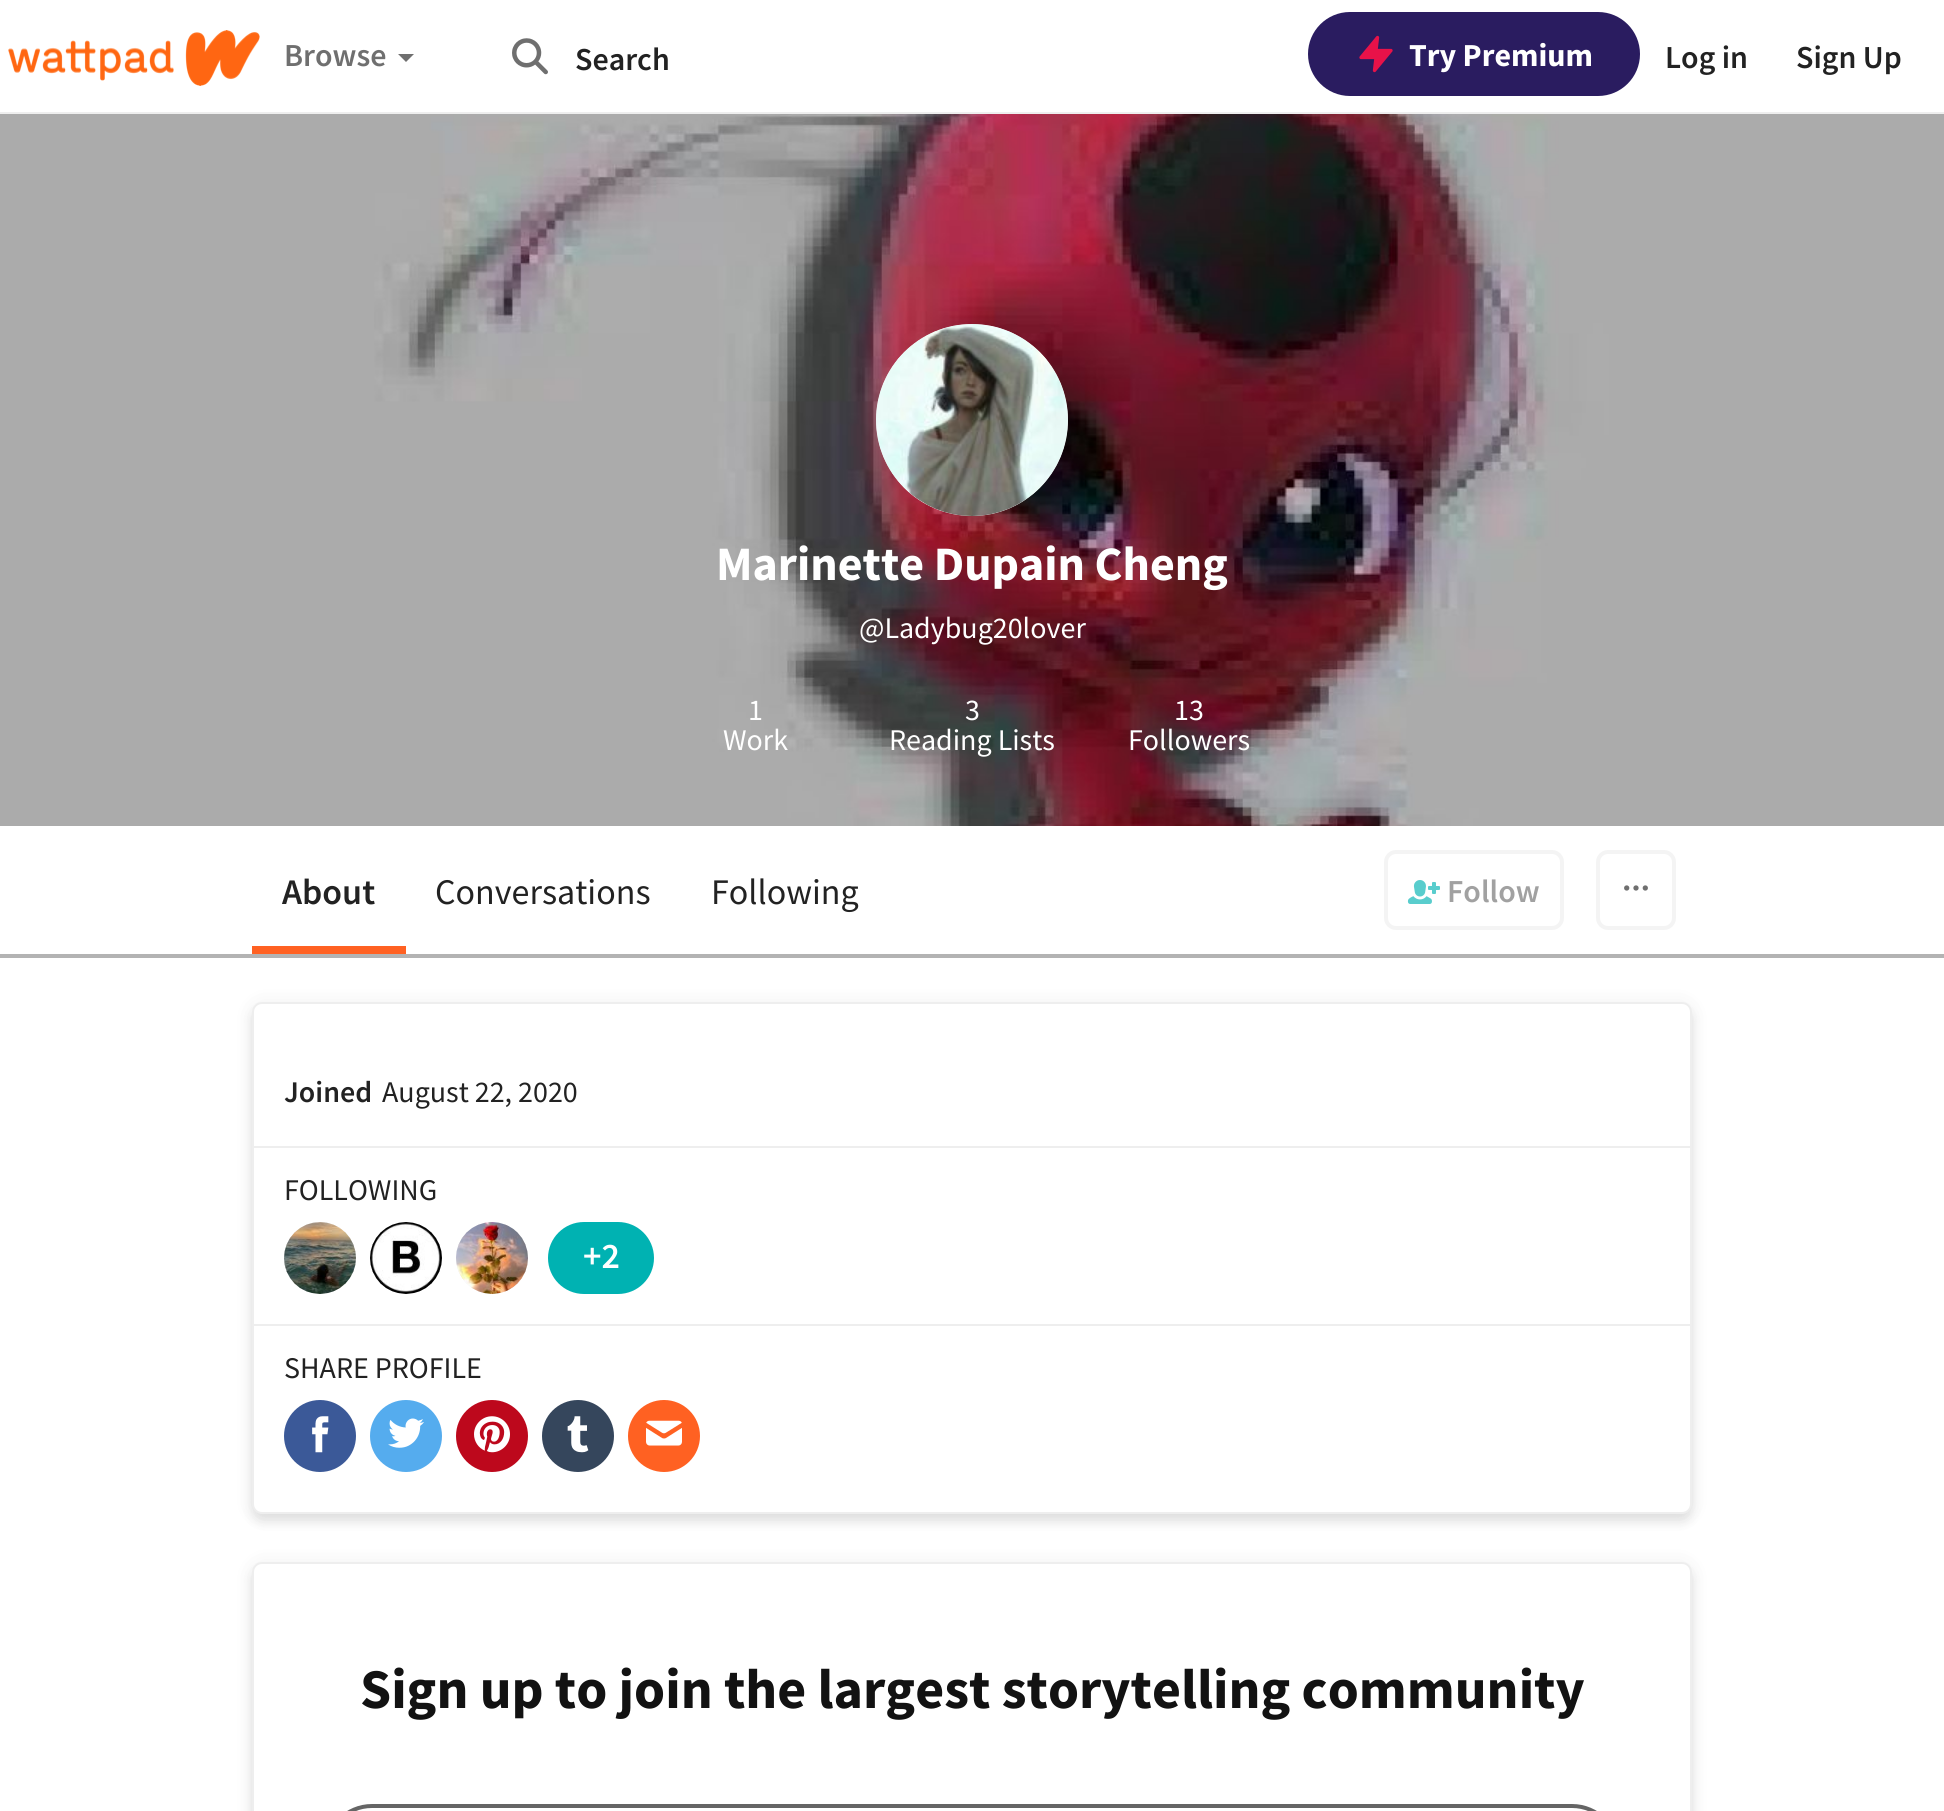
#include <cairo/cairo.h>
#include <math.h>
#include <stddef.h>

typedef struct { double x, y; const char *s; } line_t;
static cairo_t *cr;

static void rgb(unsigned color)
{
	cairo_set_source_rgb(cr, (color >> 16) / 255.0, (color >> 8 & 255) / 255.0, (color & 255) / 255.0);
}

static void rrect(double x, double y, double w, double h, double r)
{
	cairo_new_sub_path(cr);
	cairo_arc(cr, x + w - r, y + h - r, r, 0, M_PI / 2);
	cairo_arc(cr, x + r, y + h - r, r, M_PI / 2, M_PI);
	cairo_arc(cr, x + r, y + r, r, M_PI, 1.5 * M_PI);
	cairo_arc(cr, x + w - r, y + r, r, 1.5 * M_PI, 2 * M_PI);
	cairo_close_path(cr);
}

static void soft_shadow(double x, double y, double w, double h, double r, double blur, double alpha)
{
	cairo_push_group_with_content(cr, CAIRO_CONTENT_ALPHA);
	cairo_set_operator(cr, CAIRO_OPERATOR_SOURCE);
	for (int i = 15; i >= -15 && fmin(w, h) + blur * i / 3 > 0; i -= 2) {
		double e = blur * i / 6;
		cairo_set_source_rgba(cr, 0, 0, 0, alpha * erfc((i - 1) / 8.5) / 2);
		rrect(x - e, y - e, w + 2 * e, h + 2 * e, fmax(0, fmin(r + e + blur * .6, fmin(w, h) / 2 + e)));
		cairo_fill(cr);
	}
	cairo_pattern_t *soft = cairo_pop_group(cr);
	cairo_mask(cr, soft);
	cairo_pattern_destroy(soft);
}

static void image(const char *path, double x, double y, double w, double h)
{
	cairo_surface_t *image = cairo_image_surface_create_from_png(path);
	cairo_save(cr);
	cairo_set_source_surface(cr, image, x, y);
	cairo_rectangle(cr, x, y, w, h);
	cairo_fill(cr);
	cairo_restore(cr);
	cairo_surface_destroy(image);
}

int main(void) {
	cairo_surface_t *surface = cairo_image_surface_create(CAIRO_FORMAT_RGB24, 1944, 1811);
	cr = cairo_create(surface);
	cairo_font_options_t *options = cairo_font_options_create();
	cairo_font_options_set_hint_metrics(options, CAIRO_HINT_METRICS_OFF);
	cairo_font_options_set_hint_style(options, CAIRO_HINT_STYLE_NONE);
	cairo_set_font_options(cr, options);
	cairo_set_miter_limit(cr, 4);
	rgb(0xffffff);
	cairo_paint(cr);
	rgb(0xeeeeee);
	cairo_rectangle(cr, 0, 112, 1944, 2);
	cairo_fill(cr);
	image("img/1.png", 8, 30, 252, 56);
	rgb(0x6f6f6f);
	cairo_new_path(cr);
	cairo_move_to(cr, 398, 54);
	cairo_line_to(cr, 414, 54);
	cairo_line_to(cr, 406, 62);
	cairo_close_path(cr);
	cairo_fill(cr);
	image("img/2.png", 512, 38, 36, 37);
	rgb(0x2a1c60);
	rrect(1308, 12, 332, 84, 42);
	cairo_fill(cr);
	rgb(0xe81249);
	cairo_new_path(cr);
	cairo_move_to(cr, 1377.5, 37.5);
	cairo_line_to(cr, 1361, 57.5);
	cairo_line_to(cr, 1376, 57.5);
	cairo_line_to(cr, 1374.5, 70.5);
	cairo_line_to(cr, 1391, 50.5);
	cairo_line_to(cr, 1376, 50.5);
	cairo_close_path(cr);
	cairo_fill_preserve(cr);
	cairo_set_line_width(cr, 3.3);
	cairo_set_line_cap(cr, CAIRO_LINE_CAP_ROUND);
	cairo_set_line_join(cr, CAIRO_LINE_JOIN_ROUND);
	cairo_stroke(cr);
	image("img/3.png", 0, 114, 1944, 712);
	rgb(0xeeeeee);
	cairo_arc(cr, 972, 420, 96, 0, 2 * M_PI);
	cairo_fill(cr);
	image("img/4.png", 876, 324, 192, 192);
	rgb(0xb3b3b3);
	cairo_rectangle(cr, 0, 954, 1944, 4);
	cairo_fill(cr);
	rgb(0xff6122);
	cairo_rectangle(cr, 252, 946, 154, 8);
	cairo_fill(cr);
	rrect(1386, 852, 176, 76, 10);
	rgb(0xf4f4f4);
	cairo_set_line_width(cr, 4);
	cairo_set_line_cap(cr, CAIRO_LINE_CAP_BUTT);
	cairo_set_line_join(cr, CAIRO_LINE_JOIN_MITER);
	cairo_stroke(cr);
	image("img/5.png", 1407, 880, 33, 24);
	rrect(1598, 852, 76, 76, 10);
	cairo_stroke(cr);
	cairo_arc(cr, 1626.7, 888, 1.3, 0, 2 * M_PI);
	rgb(0x6f6f6f);
	cairo_set_line_width(cr, 2.7);
	cairo_stroke(cr);
	cairo_arc(cr, 1636, 888, 1.3, 0, 2 * M_PI);
	cairo_stroke(cr);
	cairo_arc(cr, 1645.3, 888, 1.3, 0, 2 * M_PI);
	cairo_stroke(cr);
	rgb(0x222222);
	soft_shadow(252, 1010, 1440, 512, 10, 5, 0.1);
	soft_shadow(252, 1004, 1440, 512, 10, 10, 0.08);
	rgb(0xffffff);
	rrect(253, 1003, 1438, 510, 9);
	cairo_fill_preserve(cr);
	rgb(0xeeeeee);
	cairo_set_line_width(cr, 2);
	cairo_stroke(cr);
	cairo_rectangle(cr, 254, 1146, 1436, 2);
	cairo_fill(cr);
	cairo_arc(cr, 320, 1258, 36, 0, 2 * M_PI);
	cairo_fill(cr);
	image("img/6.png", 284, 1222, 72, 72);
	cairo_arc(cr, 406, 1258, 36, 0, 2 * M_PI);
	cairo_fill(cr);
	image("img/7.png", 370, 1222, 72, 72);
	cairo_arc(cr, 492, 1258, 36, 0, 2 * M_PI);
	cairo_fill(cr);
	image("img/8.png", 456, 1222, 72, 72);
	rgb(0x00b2b2);
	rrect(548, 1222, 106, 72, 36);
	cairo_fill(cr);
	rgb(0xeeeeee);
	cairo_rectangle(cr, 254, 1324, 1436, 2);
	cairo_fill(cr);
	rgb(0x3b5998);
	cairo_arc(cr, 320, 1436, 36, 0, 2 * M_PI);
	cairo_fill(cr);
	image("img/9.png", 312, 1416, 17, 37);
	rgb(0x55acee);
	cairo_arc(cr, 406, 1436, 36, 0, 2 * M_PI);
	cairo_fill(cr);
	image("img/10.png", 388, 1418, 36, 30);
	rgb(0xbd081c);
	cairo_arc(cr, 492, 1436, 36, 0, 2 * M_PI);
	cairo_fill(cr);
	image("img/11.png", 474, 1416, 36, 37);
	rgb(0x35465c);
	cairo_arc(cr, 578, 1436, 36, 0, 2 * M_PI);
	cairo_fill(cr);
	image("img/12.png", 567, 1416, 22, 37);
	rgb(0xff6122);
	cairo_arc(cr, 664, 1436, 36, 0, 2 * M_PI);
	cairo_fill(cr);
	image("img/13.png", 646, 1420, 36, 26);
	rgb(0x222222);
	soft_shadow(252, 1570, 1440, 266, 10, 5, 0.1);
	soft_shadow(252, 1564, 1440, 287, 10, 10, 0.08);
	rgb(0xffffff);
	rrect(253, 1563, 1438, 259, 9);
	cairo_fill_preserve(cr);
	rgb(0xeeeeee);
	cairo_stroke(cr);
	rrect(326, 1806, 1292, 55, 46);
	rgb(0x656565);
	cairo_set_line_width(cr, 4);
	cairo_stroke(cr);
	cairo_select_font_face(cr, "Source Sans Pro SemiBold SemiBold", CAIRO_FONT_SLANT_NORMAL, CAIRO_FONT_WEIGHT_NORMAL);
	cairo_set_font_size(cr, 32);
	rgb(0x6f6f6f);
	cairo_move_to(cr, 284, 66);
	cairo_show_text(cr, "Browse");
	rgb(0x222222);
	cairo_move_to(cr, 575, 70);
	cairo_show_text(cr, "Search");
	cairo_select_font_face(cr, "Source Sans Pro", CAIRO_FONT_SLANT_NORMAL, CAIRO_FONT_WEIGHT_BOLD);
	rgb(0xffffff);
	cairo_move_to(cr, 1409, 66);
	cairo_show_text(cr, "Try Premium");
	cairo_select_font_face(cr, "Source Sans Pro SemiBold SemiBold", CAIRO_FONT_SLANT_NORMAL, CAIRO_FONT_WEIGHT_NORMAL);
	rgb(0x222222);
	cairo_move_to(cr, 1665, 68);
	cairo_show_text(cr, "Log in");
	cairo_move_to(cr, 1796, 68);
	cairo_show_text(cr, "Sign Up");
	cairo_select_font_face(cr, "Source Sans Pro", CAIRO_FONT_SLANT_NORMAL, CAIRO_FONT_WEIGHT_BOLD);
	cairo_set_font_size(cr, 48);
	rgb(0xffffff);
	cairo_move_to(cr, 716, 580);
	cairo_show_text(cr, "Marinette Dupain Cheng");
	cairo_select_font_face(cr, "Source Sans Pro", CAIRO_FONT_SLANT_NORMAL, CAIRO_FONT_WEIGHT_NORMAL);
	cairo_set_font_size(cr, 30);
	{
		static const line_t items[] = {
			{859, 638, "@Ladybug20lover"},
			{748, 720, "1"},
			{723, 750, "Work"},
			{965, 720, "3"},
			{889, 750, "Reading Lists"},
			{1174, 720, "13"},
			{1128, 750, "Followers"},
		};
		for (size_t i = 0; i < sizeof items / sizeof *items; i++) {
			cairo_move_to(cr, items[i].x, items[i].y);
			cairo_show_text(cr, items[i].s);
		}
	}
	cairo_select_font_face(cr, "Source Sans Pro SemiBold SemiBold", CAIRO_FONT_SLANT_NORMAL, CAIRO_FONT_WEIGHT_NORMAL);
	cairo_set_font_size(cr, 36);
	rgb(0x222222);
	cairo_move_to(cr, 282, 904);
	cairo_show_text(cr, "About");
	cairo_select_font_face(cr, "Source Sans Pro", CAIRO_FONT_SLANT_NORMAL, CAIRO_FONT_WEIGHT_NORMAL);
	cairo_move_to(cr, 435, 904);
	cairo_show_text(cr, "Conversations");
	cairo_move_to(cr, 711, 904);
	cairo_show_text(cr, "Following");
	cairo_select_font_face(cr, "Source Sans Pro SemiBold SemiBold", CAIRO_FONT_SLANT_NORMAL, CAIRO_FONT_WEIGHT_NORMAL);
	cairo_set_font_size(cr, 32);
	rgb(0xa1a1a1);
	cairo_move_to(cr, 1447, 902);
	cairo_show_text(cr, "Follow");
	cairo_set_font_size(cr, 30);
	rgb(0x222222);
	cairo_move_to(cr, 284, 1102);
	cairo_show_text(cr, "Joined");
	cairo_select_font_face(cr, "Source Sans Pro", CAIRO_FONT_SLANT_NORMAL, CAIRO_FONT_WEIGHT_NORMAL);
	cairo_move_to(cr, 382, 1102);
	cairo_show_text(cr, "August 22, 2020");
	cairo_move_to(cr, 284, 1200);
	cairo_show_text(cr, "FOLLOWING");
	cairo_select_font_face(cr, "Source Sans Pro SemiBold SemiBold", CAIRO_FONT_SLANT_NORMAL, CAIRO_FONT_WEIGHT_NORMAL);
	cairo_set_font_size(cr, 36);
	rgb(0xffffff);
	cairo_move_to(cr, 583, 1268);
	cairo_show_text(cr, "+2");
	cairo_select_font_face(cr, "Source Sans Pro", CAIRO_FONT_SLANT_NORMAL, CAIRO_FONT_WEIGHT_NORMAL);
	cairo_set_font_size(cr, 30);
	rgb(0x222222);
	cairo_move_to(cr, 284, 1378);
	cairo_show_text(cr, "SHARE PROFILE");
	cairo_select_font_face(cr, "Source Sans Pro", CAIRO_FONT_SLANT_NORMAL, CAIRO_FONT_WEIGHT_BOLD);
	cairo_set_font_size(cr, 56);
	rgb(0x121212);
	cairo_move_to(cr, 360, 1708);
	cairo_show_text(cr, "Sign up to join the largest storytelling community");
	cairo_surface_write_to_png(surface, "page.png");
	cairo_font_options_destroy(options);
	cairo_destroy(cr);
	cairo_surface_destroy(surface);
	return 0;
}
